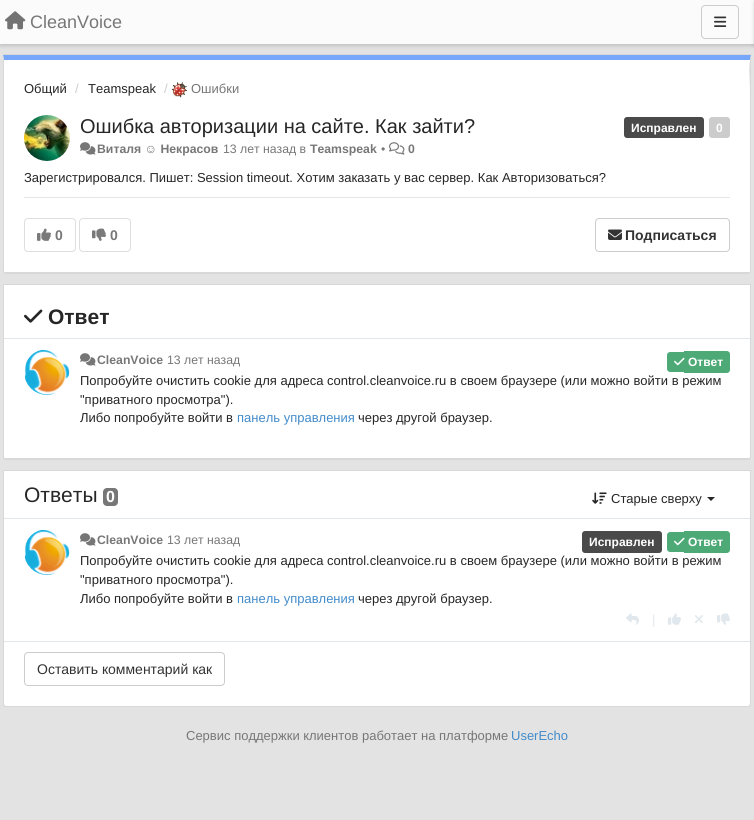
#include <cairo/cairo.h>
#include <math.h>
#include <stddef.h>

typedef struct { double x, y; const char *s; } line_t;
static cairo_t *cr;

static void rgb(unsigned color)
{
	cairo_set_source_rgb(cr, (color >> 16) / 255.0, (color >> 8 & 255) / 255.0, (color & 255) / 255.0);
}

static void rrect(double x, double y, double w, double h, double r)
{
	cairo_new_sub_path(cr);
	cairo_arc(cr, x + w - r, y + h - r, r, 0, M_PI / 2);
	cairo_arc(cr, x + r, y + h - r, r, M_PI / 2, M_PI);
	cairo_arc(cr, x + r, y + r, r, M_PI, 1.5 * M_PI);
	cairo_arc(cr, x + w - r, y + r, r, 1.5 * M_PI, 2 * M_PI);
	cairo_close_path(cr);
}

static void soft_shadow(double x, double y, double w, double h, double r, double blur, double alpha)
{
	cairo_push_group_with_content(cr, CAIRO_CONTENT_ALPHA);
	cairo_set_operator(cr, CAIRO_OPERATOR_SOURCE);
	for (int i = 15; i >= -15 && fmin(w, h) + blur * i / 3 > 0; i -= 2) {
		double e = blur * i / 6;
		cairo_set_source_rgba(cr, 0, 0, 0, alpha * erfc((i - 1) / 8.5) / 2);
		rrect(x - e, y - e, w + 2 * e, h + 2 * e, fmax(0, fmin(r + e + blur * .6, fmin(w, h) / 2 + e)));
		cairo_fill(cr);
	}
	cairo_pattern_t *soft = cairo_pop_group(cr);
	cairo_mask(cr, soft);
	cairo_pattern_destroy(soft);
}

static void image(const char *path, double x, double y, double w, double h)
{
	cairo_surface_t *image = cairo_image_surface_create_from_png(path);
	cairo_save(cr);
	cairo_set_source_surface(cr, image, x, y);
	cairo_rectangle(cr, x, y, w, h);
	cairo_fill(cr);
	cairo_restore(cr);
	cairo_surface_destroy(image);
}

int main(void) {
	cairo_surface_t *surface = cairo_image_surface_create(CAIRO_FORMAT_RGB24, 754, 820);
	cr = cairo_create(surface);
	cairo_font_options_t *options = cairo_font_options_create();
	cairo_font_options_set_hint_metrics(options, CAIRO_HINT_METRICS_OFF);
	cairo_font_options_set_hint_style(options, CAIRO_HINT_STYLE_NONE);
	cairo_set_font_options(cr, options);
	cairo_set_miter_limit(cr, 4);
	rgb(0xe3e3e3);
	cairo_paint(cr);
	rgb(0x000000);
	soft_shadow(0, 2, 754, 44, 0, 2, 0.15);
	rgb(0xfbfbfb);
	cairo_rectangle(cr, 0, 0, 754, 44);
	cairo_fill(cr);
	image("img/1.png", 5, 11, 21, 19);
	rrect(701.5, 5.5, 37, 33, 3.5);
	rgb(0xcccccc);
	cairo_set_line_width(cr, 1);
	cairo_stroke(cr);
	image("img/2.png", 714, 16, 13, 11);
	rgb(0x000000);
	soft_shadow(754, 2, 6, 44, 0, 2, 0.15);
	rgb(0xd8d8d8);
	cairo_rectangle(cr, 3, 54, 748, 1);
	cairo_fill(cr);
	rgb(0xffffff);
	cairo_new_path(cr);
	cairo_move_to(cr, 4, 60);
	cairo_line_to(cr, 750, 60);
	cairo_line_to(cr, 750, 271);
	cairo_curve_to(cr, 750, 272, 749, 272, 748, 272);
	cairo_line_to(cr, 6, 272);
	cairo_curve_to(cr, 5, 272, 4, 272, 4, 271);
	cairo_close_path(cr);
	cairo_fill(cr);
	rgb(0x76a7fa);
	cairo_new_path(cr);
	cairo_move_to(cr, 3, 55);
	cairo_line_to(cr, 4, 60);
	cairo_line_to(cr, 750, 60);
	cairo_line_to(cr, 751, 55);
	cairo_close_path(cr);
	cairo_fill(cr);
	rgb(0xd8d8d8);
	cairo_new_path(cr);
	cairo_move_to(cr, 751, 55);
	cairo_curve_to(cr, 748, 69, 750, 74, 750, 95);
	cairo_line_to(cr, 750, 272);
	cairo_line_to(cr, 750, 273);
	cairo_line_to(cr, 751, 271);
	cairo_close_path(cr);
	cairo_fill(cr);
	cairo_new_path(cr);
	cairo_move_to(cr, 6, 274);
	cairo_line_to(cr, 748, 274);
	cairo_line_to(cr, 750, 273);
	cairo_line_to(cr, 750, 272);
	cairo_line_to(cr, 748, 272);
	cairo_line_to(cr, 6, 272);
	cairo_line_to(cr, 4, 272);
	cairo_line_to(cr, 4, 273);
	cairo_close_path(cr);
	cairo_fill(cr);
	cairo_new_path(cr);
	cairo_move_to(cr, 4, 60);
	cairo_line_to(cr, 3, 55);
	cairo_line_to(cr, 3, 271);
	cairo_line_to(cr, 4, 273);
	cairo_line_to(cr, 4, 271);
	cairo_close_path(cr);
	cairo_fill(cr);
	image("img/3.png", 171, 82, 16, 16);
	image("img/4.png", 24, 115, 46, 46);
	rgb(0x4a4a4a);
	rrect(624, 117, 80, 21, 3);
	cairo_fill(cr);
	rgb(0xcccccc);
	rrect(709, 117, 21, 21, 3);
	cairo_fill(cr);
	image("img/5.png", 80, 142, 16, 13);
	image("img/6.png", 389, 142, 16, 13);
	rgb(0xe5e5e5);
	cairo_rectangle(cr, 24, 197, 706, 1);
	cairo_fill(cr);
	rrect(24.5, 218.5, 51, 33, 3.5);
	rgb(0xdedede);
	cairo_stroke(cr);
	image("img/7.png", 37, 228, 14, 13);
	rrect(79.5, 218.5, 51, 33, 3.5);
	cairo_stroke(cr);
	image("img/8.png", 92, 228, 14, 13);
	rrect(595.5, 218.5, 134, 33, 3.5);
	rgb(0xcccccc);
	cairo_stroke(cr);
	image("img/9.png", 608, 229, 14, 11);
	rgb(0xffffff);
	cairo_new_path(cr);
	cairo_move_to(cr, 4, 285);
	cairo_line_to(cr, 750, 285);
	cairo_line_to(cr, 750, 457);
	cairo_curve_to(cr, 750, 458, 749, 458, 748, 458);
	cairo_line_to(cr, 6, 458);
	cairo_curve_to(cr, 5, 458, 4, 458, 4, 457);
	cairo_close_path(cr);
	cairo_fill(cr);
	cairo_new_path(cr);
	cairo_move_to(cr, 3.5, 284.5);
	cairo_line_to(cr, 750.5, 284.5);
	cairo_line_to(cr, 750.5, 457);
	cairo_curve_to(cr, 750.5, 458.5, 749.5, 459.5, 748, 459.5);
	cairo_line_to(cr, 6, 459.5);
	cairo_curve_to(cr, 4.5, 459.5, 3.5, 458.5, 3.5, 457);
	cairo_close_path(cr);
	rgb(0xd8d8d8);
	cairo_stroke(cr);
	cairo_rectangle(cr, 5, 458, 745, 1);
	cairo_fill(cr);
	image("img/10.png", 24, 309, 19, 14);
	rgb(0xe1e8ed);
	cairo_rectangle(cr, 4, 338, 746, 1);
	cairo_fill(cr);
	image("img/11.png", 24, 349, 46, 46);
	image("img/5.png", 80, 353, 16, 13);
	rgb(0x4daa77);
	cairo_new_path(cr);
	cairo_move_to(cr, 670, 352);
	cairo_line_to(cr, 684, 352);
	cairo_line_to(cr, 684, 372);
	cairo_line_to(cr, 670, 372);
	cairo_curve_to(cr, 668.5, 372, 667, 370.5, 667, 369);
	cairo_line_to(cr, 667, 355);
	cairo_curve_to(cr, 667, 353.5, 668.5, 352, 670, 352);
	cairo_close_path(cr);
	cairo_fill(cr);
	cairo_new_path(cr);
	cairo_move_to(cr, 684, 351);
	cairo_line_to(cr, 727, 351);
	cairo_curve_to(cr, 728.5, 351, 730, 352.5, 730, 354);
	cairo_line_to(cr, 730, 370);
	cairo_curve_to(cr, 730, 371.5, 728.5, 373, 727, 373);
	cairo_line_to(cr, 684, 373);
	cairo_close_path(cr);
	cairo_fill(cr);
	image("img/12.png", 674, 357, 11, 9);
	rgb(0xd8d8d8);
	cairo_rectangle(cr, 3, 470, 748, 1);
	cairo_fill(cr);
	rgb(0xffffff);
	cairo_new_path(cr);
	cairo_move_to(cr, 4, 471);
	cairo_line_to(cr, 750, 471);
	cairo_line_to(cr, 750, 704);
	cairo_curve_to(cr, 750, 705, 749, 706, 748, 706);
	cairo_line_to(cr, 6, 706);
	cairo_curve_to(cr, 5, 706, 4, 705, 4, 704);
	cairo_close_path(cr);
	cairo_fill(cr);
	rgb(0xd8d8d8);
	cairo_set_fill_rule(cr, CAIRO_FILL_RULE_EVEN_ODD);
	cairo_new_path(cr);
	cairo_move_to(cr, 3, 471);
	cairo_line_to(cr, 751, 471);
	cairo_line_to(cr, 751, 704);
	cairo_curve_to(cr, 751, 706, 750, 707, 748, 707);
	cairo_line_to(cr, 6, 707);
	cairo_curve_to(cr, 4, 707, 3, 706, 3, 704);
	cairo_close_path(cr);
	cairo_move_to(cr, 4, 471);
	cairo_line_to(cr, 750, 471);
	cairo_line_to(cr, 750, 704);
	cairo_curve_to(cr, 750, 705, 749, 706, 748, 706);
	cairo_line_to(cr, 6, 706);
	cairo_curve_to(cr, 5, 706, 4, 705, 4, 704);
	cairo_close_path(cr);
	cairo_fill(cr);
	rgb(0x777777);
	rrect(103, 488, 15, 18, 4);
	cairo_fill(cr);
	image("img/13.png", 592, 492, 15, 12);
	rgb(0x262626);
	cairo_set_fill_rule(cr, CAIRO_FILL_RULE_WINDING);
	cairo_new_path(cr);
	cairo_move_to(cr, 707, 497);
	cairo_line_to(cr, 715, 497);
	cairo_line_to(cr, 711, 501);
	cairo_close_path(cr);
	cairo_fill(cr);
	rgb(0xe1e8ed);
	cairo_rectangle(cr, 4, 518, 746, 1);
	cairo_fill(cr);
	cairo_rectangle(cr, 4, 641, 746, 1);
	cairo_fill(cr);
	image("img/11.png", 24, 529, 46, 46);
	image("img/5.png", 80, 533, 16, 13);
	rgb(0x4a4a4a);
	rrect(582, 531, 80, 22, 3);
	cairo_fill(cr);
	rgb(0x4daa77);
	cairo_new_path(cr);
	cairo_move_to(cr, 670, 532);
	cairo_line_to(cr, 684, 532);
	cairo_line_to(cr, 684, 552);
	cairo_line_to(cr, 670, 552);
	cairo_curve_to(cr, 668.5, 552, 667, 550.5, 667, 549);
	cairo_line_to(cr, 667, 535);
	cairo_curve_to(cr, 667, 533.5, 668.5, 532, 670, 532);
	cairo_close_path(cr);
	cairo_fill(cr);
	cairo_new_path(cr);
	cairo_move_to(cr, 684, 531);
	cairo_line_to(cr, 727, 531);
	cairo_curve_to(cr, 728.5, 531, 730, 532.5, 730, 534);
	cairo_line_to(cr, 730, 550);
	cairo_curve_to(cr, 730, 551.5, 728.5, 553, 727, 553);
	cairo_line_to(cr, 684, 553);
	cairo_close_path(cr);
	cairo_fill(cr);
	image("img/12.png", 674, 537, 11, 9);
	image("img/14.png", 626, 613, 13, 12);
	image("img/15.png", 668, 613, 13, 12);
	image("img/16.png", 695, 615, 8, 8);
	image("img/17.png", 717, 613, 13, 12);
	rrect(24.5, 652.5, 200, 33, 3.5);
	rgb(0xcccccc);
	cairo_stroke(cr);
	cairo_select_font_face(cr, "Liberation Sans", CAIRO_FONT_SLANT_NORMAL, CAIRO_FONT_WEIGHT_NORMAL);
	cairo_set_font_size(cr, 18);
	rgb(0x777777);
	cairo_move_to(cr, 30, 28);
	cairo_show_text(cr, "CleanVoice");
	cairo_set_font_size(cr, 13);
	rgb(0x262626);
	cairo_move_to(cr, 24, 93);
	cairo_show_text(cr, "Общий");
	rgb(0xcccccc);
	cairo_move_to(cr, 75, 93);
	cairo_show_text(cr, "/");
	rgb(0x262626);
	cairo_move_to(cr, 88, 93);
	cairo_show_text(cr, "Teamspeak");
	rgb(0xcccccc);
	cairo_move_to(cr, 164, 93);
	cairo_show_text(cr, "/");
	rgb(0x777777);
	cairo_move_to(cr, 191, 93);
	cairo_show_text(cr, "Ошибки");
	cairo_set_font_size(cr, 20);
	rgb(0x262626);
	cairo_move_to(cr, 80, 133);
	cairo_show_text(cr, "Ошибка авторизации на сайте. Как зайти?");
	cairo_select_font_face(cr, "Liberation Sans", CAIRO_FONT_SLANT_NORMAL, CAIRO_FONT_WEIGHT_BOLD);
	cairo_set_font_size(cr, 12);
	rgb(0xffffff);
	cairo_move_to(cr, 631, 132);
	cairo_show_text(cr, "Исправлен");
	cairo_move_to(cr, 716, 132);
	cairo_show_text(cr, "0");
	cairo_set_font_size(cr, 12.25);
	rgb(0x777777);
	cairo_move_to(cr, 97, 153);
	cairo_show_text(cr, "Виталя ☺ Некрасов");
	cairo_select_font_face(cr, "Liberation Sans", CAIRO_FONT_SLANT_NORMAL, CAIRO_FONT_WEIGHT_NORMAL);
	cairo_move_to(cr, 223, 153);
	cairo_show_text(cr, "13 лет назад в");
	cairo_select_font_face(cr, "Liberation Sans", CAIRO_FONT_SLANT_NORMAL, CAIRO_FONT_WEIGHT_BOLD);
	cairo_move_to(cr, 310, 153);
	cairo_show_text(cr, "Teamspeak");
	cairo_select_font_face(cr, "Liberation Sans", CAIRO_FONT_SLANT_NORMAL, CAIRO_FONT_WEIGHT_NORMAL);
	cairo_move_to(cr, 381, 153);
	cairo_show_text(cr, "•");
	cairo_select_font_face(cr, "Liberation Sans", CAIRO_FONT_SLANT_NORMAL, CAIRO_FONT_WEIGHT_BOLD);
	cairo_move_to(cr, 408, 153);
	cairo_show_text(cr, "0");
	cairo_select_font_face(cr, "Liberation Sans", CAIRO_FONT_SLANT_NORMAL, CAIRO_FONT_WEIGHT_NORMAL);
	cairo_set_font_size(cr, 13);
	rgb(0x262626);
	cairo_move_to(cr, 24, 182);
	cairo_show_text(cr, "Зарегистрировался. Пишет: Session timeout. Хотим заказать у вас сервер. Как Авторизоваться?");
	cairo_select_font_face(cr, "Liberation Sans", CAIRO_FONT_SLANT_NORMAL, CAIRO_FONT_WEIGHT_BOLD);
	cairo_set_font_size(cr, 14);
	rgb(0x777777);
	cairo_move_to(cr, 55, 240);
	cairo_show_text(cr, "0");
	cairo_move_to(cr, 110, 240);
	cairo_show_text(cr, "0");
	rgb(0x333333);
	cairo_move_to(cr, 625, 240);
	cairo_show_text(cr, "Подписаться");
	cairo_set_font_size(cr, 21);
	rgb(0x262626);
	cairo_move_to(cr, 48, 324);
	cairo_show_text(cr, "Ответ");
	cairo_set_font_size(cr, 12.25);
	rgb(0x777777);
	cairo_move_to(cr, 97, 364);
	cairo_show_text(cr, "CleanVoice");
	cairo_select_font_face(cr, "Liberation Sans", CAIRO_FONT_SLANT_NORMAL, CAIRO_FONT_WEIGHT_NORMAL);
	cairo_move_to(cr, 167, 364);
	cairo_show_text(cr, "13 лет назад");
	cairo_select_font_face(cr, "Liberation Sans", CAIRO_FONT_SLANT_NORMAL, CAIRO_FONT_WEIGHT_BOLD);
	cairo_set_font_size(cr, 12);
	rgb(0xffffff);
	cairo_move_to(cr, 688, 366);
	cairo_show_text(cr, "Ответ");
	cairo_select_font_face(cr, "Liberation Sans", CAIRO_FONT_SLANT_NORMAL, CAIRO_FONT_WEIGHT_NORMAL);
	cairo_set_font_size(cr, 13);
	rgb(0x262626);
	{
		static const line_t items[] = {
			{80, 385, "Попробуйте очистить cookie для адреса control.cleanvoice.ru в своем браузере (или можно войти в режим"},
			{80, 404, "\"приватного просмотра\")."},
			{80, 422, "Либо попробуйте войти в"},
		};
		for (size_t i = 0; i < sizeof items / sizeof *items; i++) {
			cairo_move_to(cr, items[i].x, items[i].y);
			cairo_show_text(cr, items[i].s);
		}
	}
	rgb(0x428bca);
	cairo_move_to(cr, 237, 422);
	cairo_show_text(cr, "панель управления");
	rgb(0x262626);
	cairo_move_to(cr, 358, 422);
	cairo_show_text(cr, "через другой браузер.");
	cairo_set_font_size(cr, 21);
	cairo_move_to(cr, 24, 502);
	cairo_show_text(cr, "Ответы");
	cairo_select_font_face(cr, "Liberation Sans", CAIRO_FONT_SLANT_NORMAL, CAIRO_FONT_WEIGHT_BOLD);
	cairo_set_font_size(cr, 16);
	rgb(0xffffff);
	cairo_move_to(cr, 106, 502);
	cairo_show_text(cr, "0");
	cairo_select_font_face(cr, "Liberation Sans", CAIRO_FONT_SLANT_NORMAL, CAIRO_FONT_WEIGHT_NORMAL);
	cairo_set_font_size(cr, 13);
	rgb(0x262626);
	cairo_move_to(cr, 611, 503);
	cairo_show_text(cr, "Старые сверху");
	cairo_select_font_face(cr, "Liberation Sans", CAIRO_FONT_SLANT_NORMAL, CAIRO_FONT_WEIGHT_BOLD);
	cairo_set_font_size(cr, 12.25);
	rgb(0x777777);
	cairo_move_to(cr, 97, 544);
	cairo_show_text(cr, "CleanVoice");
	cairo_select_font_face(cr, "Liberation Sans", CAIRO_FONT_SLANT_NORMAL, CAIRO_FONT_WEIGHT_NORMAL);
	cairo_move_to(cr, 167, 544);
	cairo_show_text(cr, "13 лет назад");
	cairo_select_font_face(cr, "Liberation Sans", CAIRO_FONT_SLANT_NORMAL, CAIRO_FONT_WEIGHT_BOLD);
	cairo_set_font_size(cr, 12);
	rgb(0xffffff);
	cairo_move_to(cr, 589, 546);
	cairo_show_text(cr, "Исправлен");
	cairo_move_to(cr, 688, 546);
	cairo_show_text(cr, "Ответ");
	cairo_select_font_face(cr, "Liberation Sans", CAIRO_FONT_SLANT_NORMAL, CAIRO_FONT_WEIGHT_NORMAL);
	cairo_set_font_size(cr, 13);
	rgb(0x262626);
	{
		static const line_t items[] = {
			{80, 565, "Попробуйте очистить cookie для адреса control.cleanvoice.ru в своем браузере (или можно войти в режим"},
			{80, 584, "\"приватного просмотра\")."},
			{80, 603, "Либо попробуйте войти в"},
		};
		for (size_t i = 0; i < sizeof items / sizeof *items; i++) {
			cairo_move_to(cr, items[i].x, items[i].y);
			cairo_show_text(cr, items[i].s);
		}
	}
	rgb(0x428bca);
	cairo_move_to(cr, 237, 603);
	cairo_show_text(cr, "панель управления");
	rgb(0x262626);
	cairo_move_to(cr, 358, 603);
	cairo_show_text(cr, "через другой браузер.");
	rgb(0xe1e8ed);
	cairo_move_to(cr, 652, 624);
	cairo_show_text(cr, "|");
	cairo_set_font_size(cr, 14);
	rgb(0x333333);
	cairo_move_to(cr, 37, 674);
	cairo_show_text(cr, "Оставить комментарий как");
	cairo_set_font_size(cr, 13);
	rgb(0x777777);
	cairo_move_to(cr, 186, 740);
	cairo_show_text(cr, "Сервис поддержки клиентов работает на платформе");
	rgb(0x428bca);
	cairo_move_to(cr, 511, 740);
	cairo_show_text(cr, "UserEcho");
	cairo_surface_write_to_png(surface, "page.png");
	cairo_font_options_destroy(options);
	cairo_destroy(cr);
	cairo_surface_destroy(surface);
	return 0;
}
